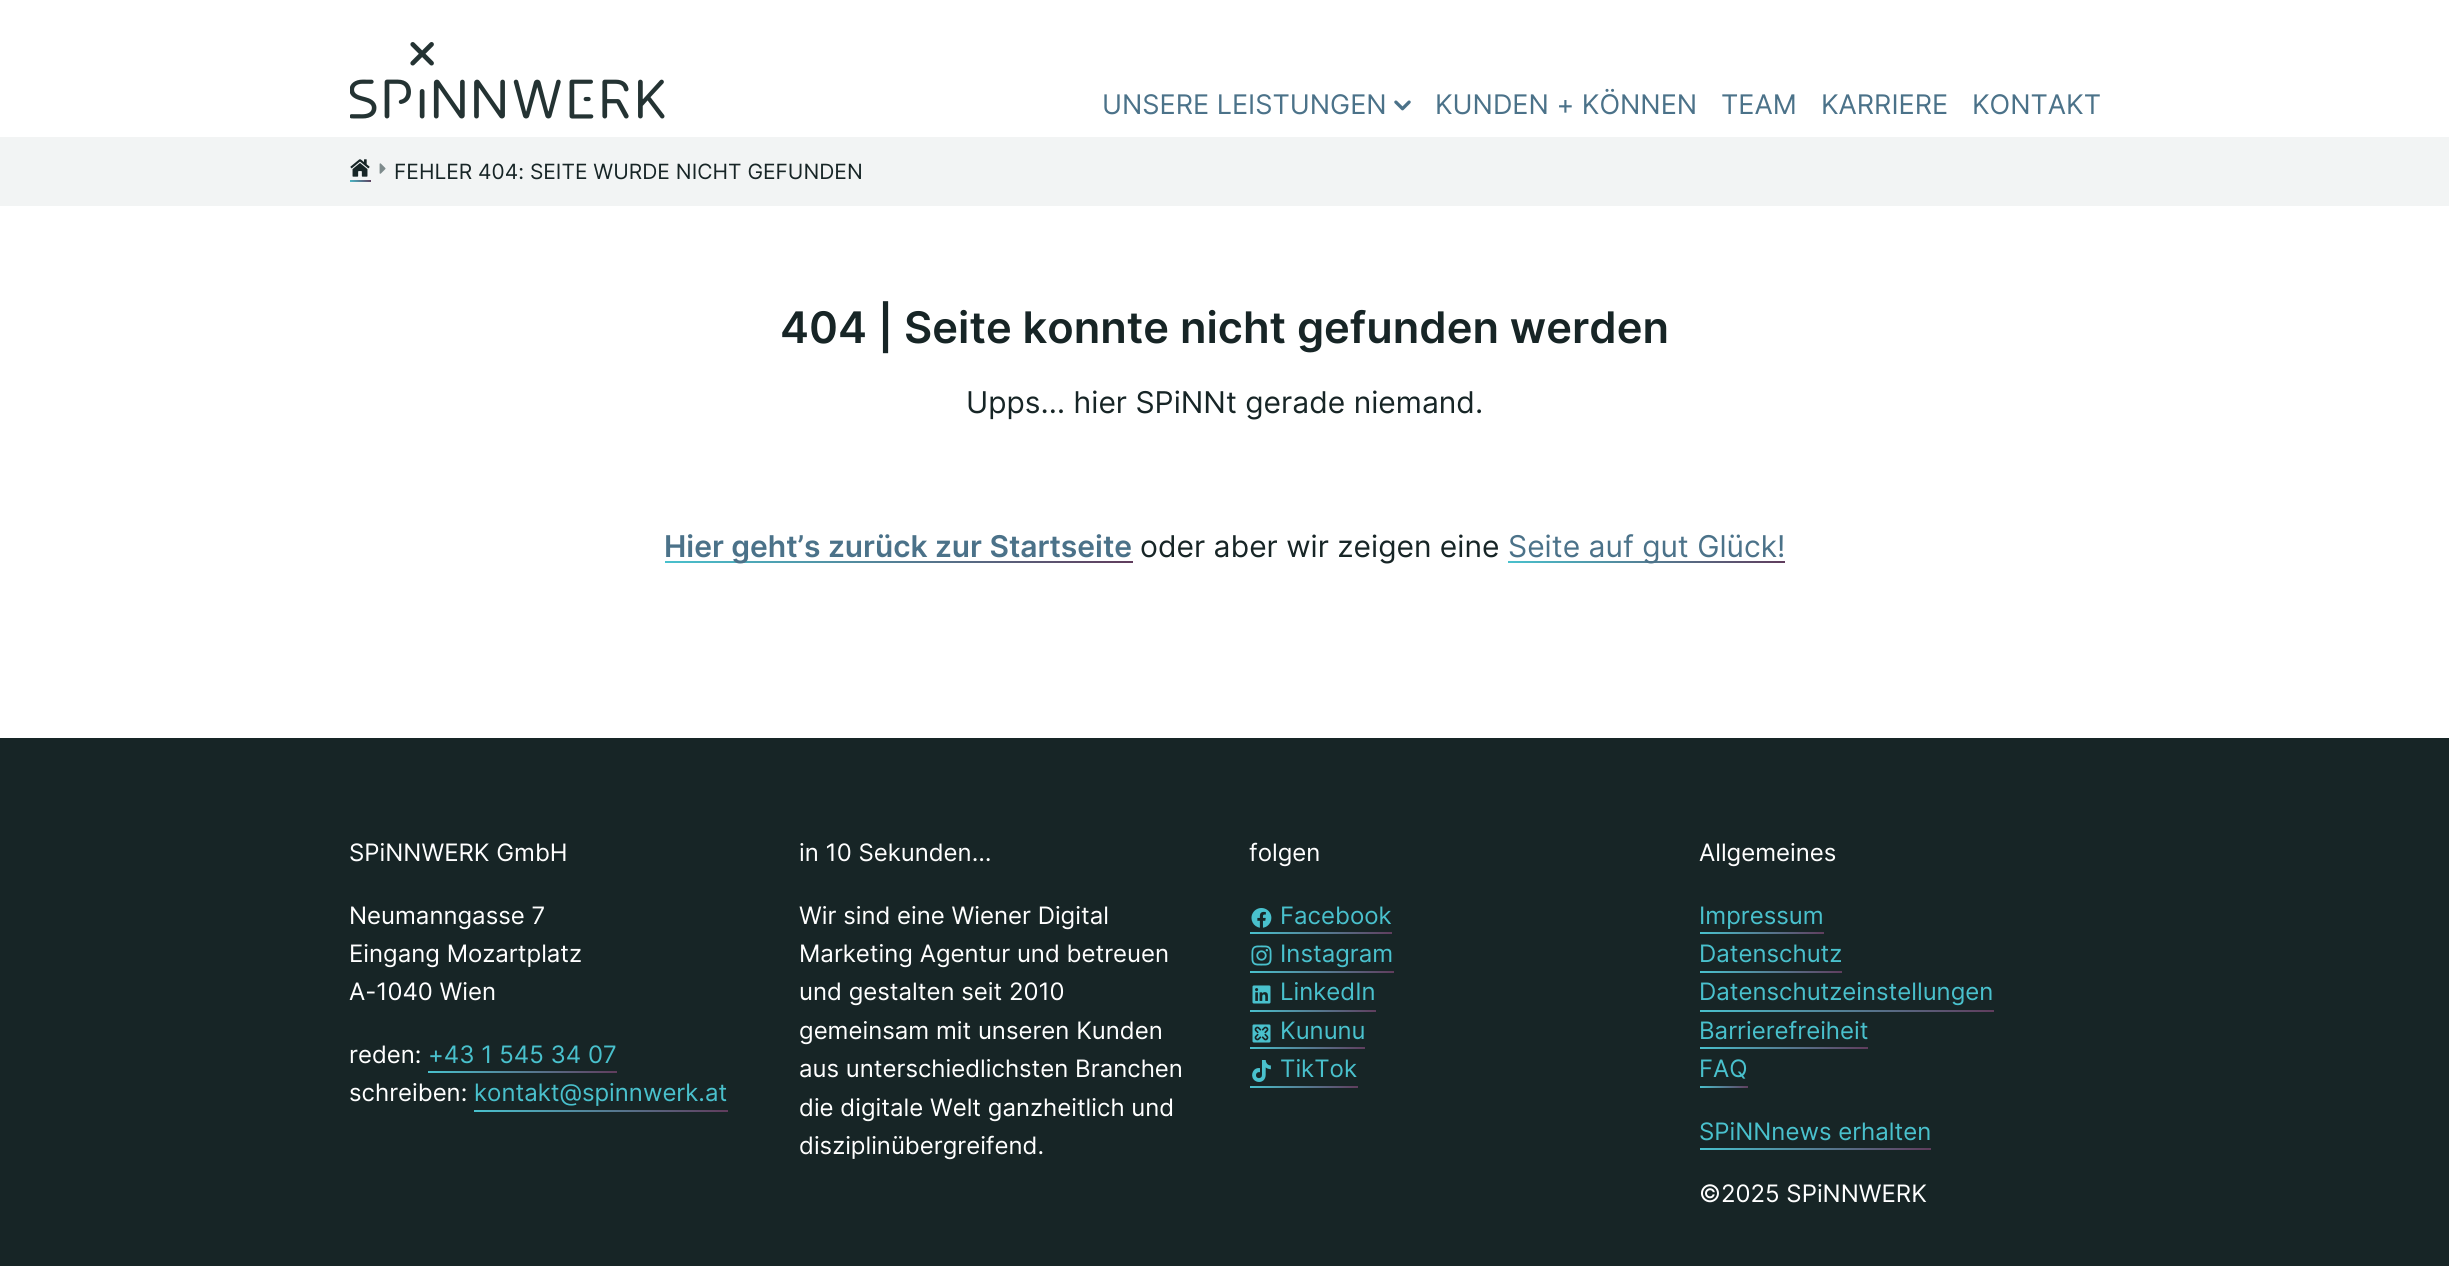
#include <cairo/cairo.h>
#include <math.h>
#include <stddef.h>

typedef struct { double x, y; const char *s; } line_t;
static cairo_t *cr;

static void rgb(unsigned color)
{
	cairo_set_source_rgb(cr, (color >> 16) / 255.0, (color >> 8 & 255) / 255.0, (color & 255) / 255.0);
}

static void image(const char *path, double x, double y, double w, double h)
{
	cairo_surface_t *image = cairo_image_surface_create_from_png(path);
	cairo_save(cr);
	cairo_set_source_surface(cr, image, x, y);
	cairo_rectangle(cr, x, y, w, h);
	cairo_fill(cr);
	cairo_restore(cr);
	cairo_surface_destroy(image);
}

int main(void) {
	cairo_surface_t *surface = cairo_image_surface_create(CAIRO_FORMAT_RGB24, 2449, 1266);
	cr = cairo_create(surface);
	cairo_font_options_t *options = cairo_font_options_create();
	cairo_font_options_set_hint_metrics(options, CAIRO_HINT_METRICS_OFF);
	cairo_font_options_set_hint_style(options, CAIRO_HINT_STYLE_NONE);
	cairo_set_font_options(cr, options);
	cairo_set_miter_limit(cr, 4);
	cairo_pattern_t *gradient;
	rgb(0xffffff);
	cairo_paint(cr);
	image("img/1.png", 350, 42, 315, 77);
	image("img/2.png", 1394, 100, 17, 11);
	rgb(0xf2f4f4);
	cairo_rectangle(cr, 0, 137, 2449, 69);
	cairo_fill(cr);
	gradient = cairo_pattern_create_linear(354, 187, 366, 175);
	cairo_pattern_add_color_stop_rgba(gradient, 0, 0.286, 0.757, 0.804, 1);
	cairo_pattern_add_color_stop_rgba(gradient, 1, 0.376, 0.235, 0.361, 1);
	cairo_set_source(cr, gradient);
	cairo_pattern_destroy(gradient);
	cairo_rectangle(cr, 350, 180, 21, 2);
	cairo_fill(cr);
	image("img/3.png", 350, 159, 20, 18);
	image("img/4.png", 379, 163, 7, 11);
	gradient = cairo_pattern_create_linear(781, 679, 1016, 444);
	cairo_pattern_add_color_stop_rgba(gradient, 0, 0.286, 0.757, 0.804, 1);
	cairo_pattern_add_color_stop_rgba(gradient, 1, 0.376, 0.235, 0.361, 1);
	cairo_set_source(cr, gradient);
	cairo_pattern_destroy(gradient);
	cairo_rectangle(cr, 665, 561, 468, 2);
	cairo_fill(cr);
	gradient = cairo_pattern_create_linear(1577, 631, 1716, 492);
	cairo_pattern_add_color_stop_rgba(gradient, 0, 0.286, 0.757, 0.804, 1);
	cairo_pattern_add_color_stop_rgba(gradient, 1, 0.376, 0.235, 0.361, 1);
	cairo_set_source(cr, gradient);
	cairo_pattern_destroy(gradient);
	cairo_rectangle(cr, 1508, 561, 277, 2);
	cairo_fill(cr);
	rgb(0x172526);
	cairo_rectangle(cr, 0, 738, 2449, 528);
	cairo_fill(cr);
	gradient = cairo_pattern_create_linear(474, 1119, 570, 1024);
	cairo_pattern_add_color_stop_rgba(gradient, 0, 0.286, 0.757, 0.804, 1);
	cairo_pattern_add_color_stop_rgba(gradient, 1, 0.376, 0.235, 0.361, 1);
	cairo_set_source(cr, gradient);
	cairo_pattern_destroy(gradient);
	cairo_rectangle(cr, 428, 1071, 189, 2);
	cairo_fill(cr);
	gradient = cairo_pattern_create_linear(537, 1174, 665, 1047);
	cairo_pattern_add_color_stop_rgba(gradient, 0, 0.286, 0.757, 0.804, 1);
	cairo_pattern_add_color_stop_rgba(gradient, 1, 0.376, 0.235, 0.361, 1);
	cairo_set_source(cr, gradient);
	cairo_pattern_destroy(gradient);
	cairo_rectangle(cr, 474, 1110, 254, 2);
	cairo_fill(cr);
	gradient = cairo_pattern_create_linear(1285, 968, 1357, 896);
	cairo_pattern_add_color_stop_rgba(gradient, 0, 0.286, 0.757, 0.804, 1);
	cairo_pattern_add_color_stop_rgba(gradient, 1, 0.376, 0.235, 0.361, 1);
	cairo_set_source(cr, gradient);
	cairo_pattern_destroy(gradient);
	cairo_rectangle(cr, 1250, 932, 142, 2);
	cairo_fill(cr);
	image("img/5.png", 1251, 908, 21, 20);
	gradient = cairo_pattern_create_linear(1285, 1007, 1358, 935);
	cairo_pattern_add_color_stop_rgba(gradient, 0, 0.286, 0.757, 0.804, 1);
	cairo_pattern_add_color_stop_rgba(gradient, 1, 0.376, 0.235, 0.361, 1);
	cairo_set_source(cr, gradient);
	cairo_pattern_destroy(gradient);
	cairo_rectangle(cr, 1250, 971, 144, 2);
	cairo_fill(cr);
	image("img/6.png", 1251, 945, 21, 21);
	gradient = cairo_pattern_create_linear(1281, 1042, 1344, 978);
	cairo_pattern_add_color_stop_rgba(gradient, 0, 0.286, 0.757, 0.804, 1);
	cairo_pattern_add_color_stop_rgba(gradient, 1, 0.376, 0.235, 0.361, 1);
	cairo_set_source(cr, gradient);
	cairo_pattern_destroy(gradient);
	cairo_rectangle(cr, 1250, 1010, 126, 2);
	cairo_fill(cr);
	image("img/7.png", 1252, 985, 19, 19);
	gradient = cairo_pattern_create_linear(1278, 1077, 1337, 1018);
	cairo_pattern_add_color_stop_rgba(gradient, 0, 0.286, 0.757, 0.804, 1);
	cairo_pattern_add_color_stop_rgba(gradient, 1, 0.376, 0.235, 0.361, 1);
	cairo_set_source(cr, gradient);
	cairo_pattern_destroy(gradient);
	cairo_rectangle(cr, 1250, 1047, 115, 2);
	cairo_fill(cr);
	image("img/8.png", 1252, 1024, 19, 19);
	gradient = cairo_pattern_create_linear(1276, 1114, 1331, 1059);
	cairo_pattern_add_color_stop_rgba(gradient, 0, 0.286, 0.757, 0.804, 1);
	cairo_pattern_add_color_stop_rgba(gradient, 1, 0.376, 0.235, 0.361, 1);
	cairo_set_source(cr, gradient);
	cairo_pattern_destroy(gradient);
	cairo_rectangle(cr, 1250, 1086, 108, 2);
	cairo_fill(cr);
	image("img/9.png", 1252, 1060, 19, 22);
	gradient = cairo_pattern_create_linear(1730, 963, 1793, 900);
	cairo_pattern_add_color_stop_rgba(gradient, 0, 0.286, 0.757, 0.804, 1);
	cairo_pattern_add_color_stop_rgba(gradient, 1, 0.376, 0.235, 0.361, 1);
	cairo_set_source(cr, gradient);
	cairo_pattern_destroy(gradient);
	cairo_rectangle(cr, 1700, 932, 124, 2);
	cairo_fill(cr);
	gradient = cairo_pattern_create_linear(1735, 1007, 1807, 935);
	cairo_pattern_add_color_stop_rgba(gradient, 0, 0.286, 0.757, 0.804, 1);
	cairo_pattern_add_color_stop_rgba(gradient, 1, 0.376, 0.235, 0.361, 1);
	cairo_set_source(cr, gradient);
	cairo_pattern_destroy(gradient);
	cairo_rectangle(cr, 1700, 971, 142, 2);
	cairo_fill(cr);
	gradient = cairo_pattern_create_linear(1773, 1084, 1920, 936);
	cairo_pattern_add_color_stop_rgba(gradient, 0, 0.286, 0.757, 0.804, 1);
	cairo_pattern_add_color_stop_rgba(gradient, 1, 0.376, 0.235, 0.361, 1);
	cairo_set_source(cr, gradient);
	cairo_pattern_destroy(gradient);
	cairo_rectangle(cr, 1700, 1010, 294, 2);
	cairo_fill(cr);
	gradient = cairo_pattern_create_linear(1741, 1090, 1826, 1005);
	cairo_pattern_add_color_stop_rgba(gradient, 0, 0.286, 0.757, 0.804, 1);
	cairo_pattern_add_color_stop_rgba(gradient, 1, 0.376, 0.235, 0.361, 1);
	cairo_set_source(cr, gradient);
	cairo_pattern_destroy(gradient);
	cairo_rectangle(cr, 1700, 1047, 168, 2);
	cairo_fill(cr);
	gradient = cairo_pattern_create_linear(1711, 1099, 1736, 1074);
	cairo_pattern_add_color_stop_rgba(gradient, 0, 0.286, 0.757, 0.804, 1);
	cairo_pattern_add_color_stop_rgba(gradient, 1, 0.376, 0.235, 0.361, 1);
	cairo_set_source(cr, gradient);
	cairo_pattern_destroy(gradient);
	cairo_rectangle(cr, 1700, 1086, 48, 2);
	cairo_fill(cr);
	gradient = cairo_pattern_create_linear(1757, 1206, 1873, 1090);
	cairo_pattern_add_color_stop_rgba(gradient, 0, 0.286, 0.757, 0.804, 1);
	cairo_pattern_add_color_stop_rgba(gradient, 1, 0.376, 0.235, 0.361, 1);
	cairo_set_source(cr, gradient);
	cairo_pattern_destroy(gradient);
	cairo_rectangle(cr, 1700, 1148, 231, 2);
	cairo_fill(cr);
	cairo_select_font_face(cr, "Inter", CAIRO_FONT_SLANT_NORMAL, CAIRO_FONT_WEIGHT_NORMAL);
	cairo_set_font_size(cr, 27);
	rgb(0x4b7289);
	{
		static const line_t items[] = {
			{1102, 114, "UNSERE LEISTUNGEN"},
			{1435, 114, "KUNDEN + KÖNNEN"},
			{1721, 114, "TEAM"},
			{1821, 114, "KARRIERE"},
			{1972, 114, "KONTAKT"},
		};
		for (size_t i = 0; i < sizeof items / sizeof *items; i++) {
			cairo_move_to(cr, items[i].x, items[i].y);
			cairo_show_text(cr, items[i].s);
		}
	}
	cairo_set_font_size(cr, 21);
	rgb(0x172526);
	cairo_move_to(cr, 394, 179);
	cairo_show_text(cr, "FEHLER 404: SEITE WURDE NICHT GEFUNDEN");
	cairo_select_font_face(cr, "Inter SemiBold", CAIRO_FONT_SLANT_NORMAL, CAIRO_FONT_WEIGHT_NORMAL);
	cairo_set_font_size(cr, 43.5);
	cairo_move_to(cr, 780, 343);
	cairo_show_text(cr, "404 | Seite konnte nicht gefunden werden");
	cairo_select_font_face(cr, "Inter", CAIRO_FONT_SLANT_NORMAL, CAIRO_FONT_WEIGHT_NORMAL);
	cairo_set_font_size(cr, 30);
	cairo_move_to(cr, 966, 413);
	cairo_show_text(cr, "Upps… hier SPiNNt gerade niemand.");
	cairo_select_font_face(cr, "Inter SemiBold", CAIRO_FONT_SLANT_NORMAL, CAIRO_FONT_WEIGHT_NORMAL);
	rgb(0x4b7289);
	cairo_move_to(cr, 664, 557);
	cairo_show_text(cr, "Hier geht’s zurück zur Startseite");
	cairo_select_font_face(cr, "Inter", CAIRO_FONT_SLANT_NORMAL, CAIRO_FONT_WEIGHT_NORMAL);
	rgb(0x172526);
	cairo_move_to(cr, 1140, 557);
	cairo_show_text(cr, "oder aber wir zeigen eine");
	rgb(0x4b7289);
	cairo_move_to(cr, 1508, 557);
	cairo_show_text(cr, "Seite auf gut Glück!");
	cairo_set_font_size(cr, 24);
	rgb(0xffffff);
	{
		static const line_t items[] = {
			{349, 861, "SPiNNWERK GmbH"},
			{349, 924, "Neumanngasse 7"},
			{349, 962, "Eingang Mozartplatz"},
			{349, 1000, "A-1040 Wien"},
			{349, 1063, "reden:"},
		};
		for (size_t i = 0; i < sizeof items / sizeof *items; i++) {
			cairo_move_to(cr, items[i].x, items[i].y);
			cairo_show_text(cr, items[i].s);
		}
	}
	rgb(0x49c1cd);
	cairo_move_to(cr, 428, 1063);
	cairo_show_text(cr, "+43 1 545 34 07");
	rgb(0xffffff);
	cairo_move_to(cr, 349, 1101);
	cairo_show_text(cr, "schreiben:");
	rgb(0x49c1cd);
	cairo_move_to(cr, 474, 1101);
	cairo_show_text(cr, "kontakt@spinnwerk.at");
	rgb(0xffffff);
	{
		static const line_t items[] = {
			{799, 861, "in 10 Sekunden…"},
			{799, 924, "Wir sind eine Wiener Digital"},
			{799, 962, "Marketing Agentur und betreuen"},
			{799, 1000, "und gestalten seit 2010"},
			{799, 1039, "gemeinsam mit unseren Kunden"},
			{799, 1077, "aus unterschiedlichsten Branchen"},
			{799, 1116, "die digitale Welt ganzheitlich und"},
			{799, 1154, "disziplinübergreifend."},
			{1249, 861, "folgen"},
		};
		for (size_t i = 0; i < sizeof items / sizeof *items; i++) {
			cairo_move_to(cr, items[i].x, items[i].y);
			cairo_show_text(cr, items[i].s);
		}
	}
	rgb(0x49c1cd);
	{
		static const line_t items[] = {
			{1280, 924, "Facebook"},
			{1280, 962, "Instagram"},
			{1280, 1000, "LinkedIn"},
			{1280, 1039, "Kununu"},
			{1280, 1077, "TikTok"},
		};
		for (size_t i = 0; i < sizeof items / sizeof *items; i++) {
			cairo_move_to(cr, items[i].x, items[i].y);
			cairo_show_text(cr, items[i].s);
		}
	}
	rgb(0xffffff);
	cairo_move_to(cr, 1699, 861);
	cairo_show_text(cr, "Allgemeines");
	rgb(0x49c1cd);
	{
		static const line_t items[] = {
			{1699, 924, "Impressum"},
			{1699, 962, "Datenschutz"},
			{1699, 1000, "Datenschutzeinstellungen"},
			{1699, 1039, "Barrierefreiheit"},
			{1699, 1077, "FAQ"},
			{1699, 1140, "SPiNNnews erhalten"},
		};
		for (size_t i = 0; i < sizeof items / sizeof *items; i++) {
			cairo_move_to(cr, items[i].x, items[i].y);
			cairo_show_text(cr, items[i].s);
		}
	}
	rgb(0xffffff);
	cairo_move_to(cr, 1699, 1202);
	cairo_show_text(cr, "©2025 SPiNNWERK");
	cairo_surface_write_to_png(surface, "page.png");
	cairo_font_options_destroy(options);
	cairo_destroy(cr);
	cairo_surface_destroy(surface);
	return 0;
}
